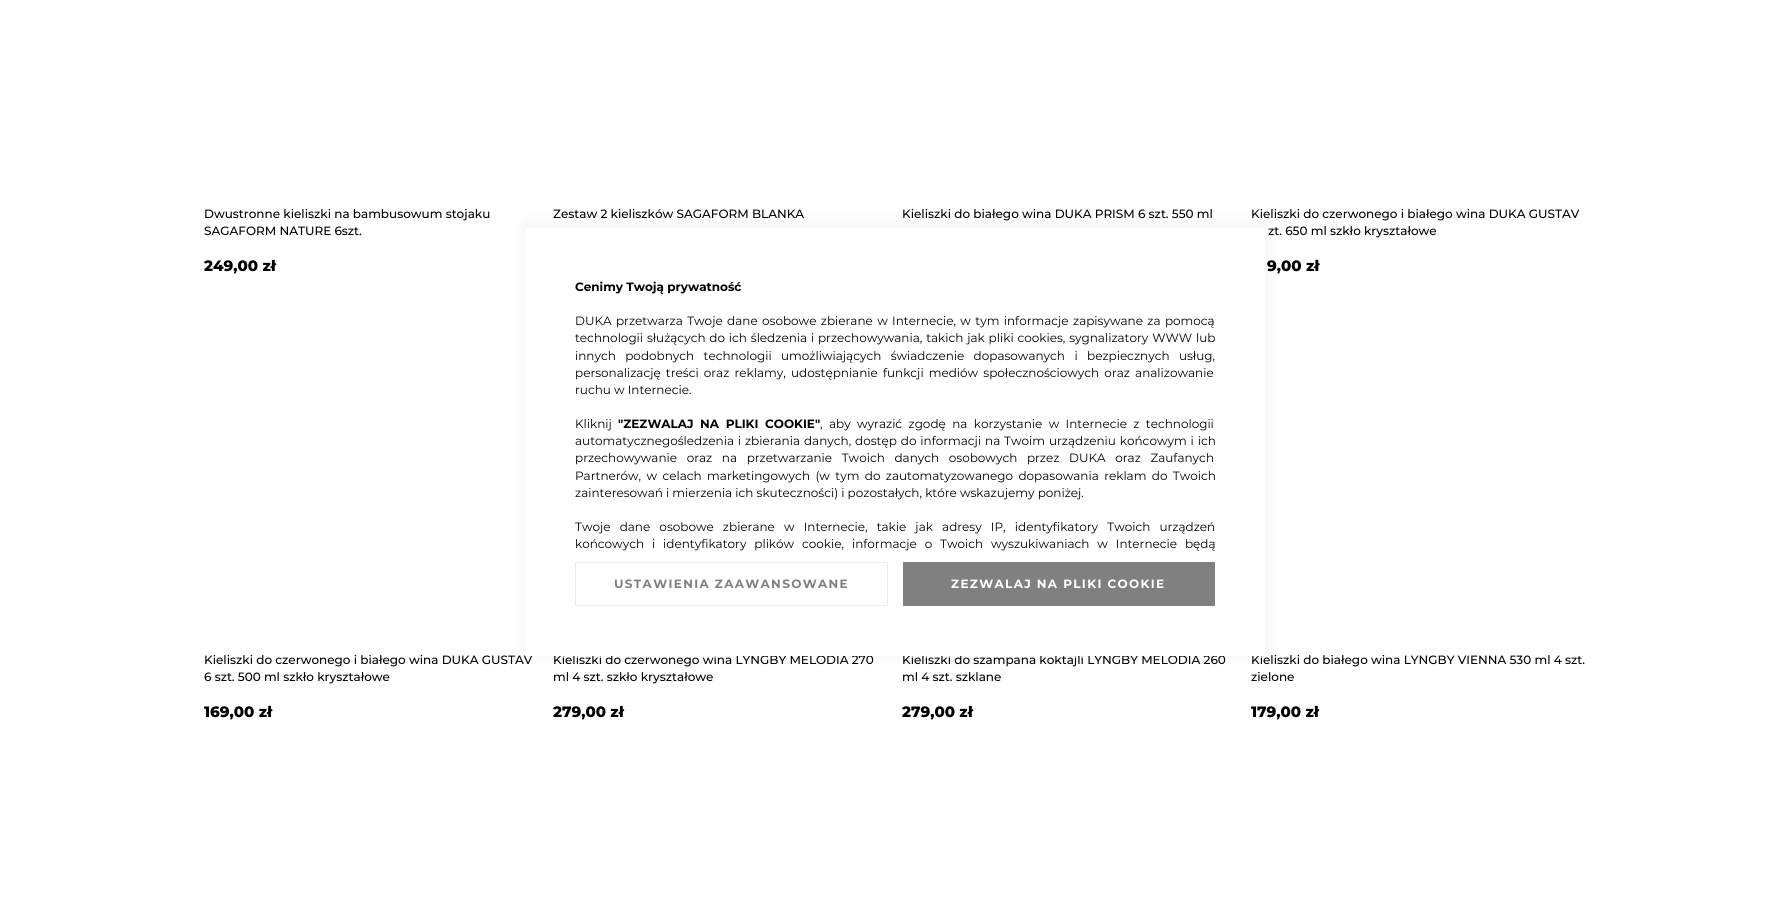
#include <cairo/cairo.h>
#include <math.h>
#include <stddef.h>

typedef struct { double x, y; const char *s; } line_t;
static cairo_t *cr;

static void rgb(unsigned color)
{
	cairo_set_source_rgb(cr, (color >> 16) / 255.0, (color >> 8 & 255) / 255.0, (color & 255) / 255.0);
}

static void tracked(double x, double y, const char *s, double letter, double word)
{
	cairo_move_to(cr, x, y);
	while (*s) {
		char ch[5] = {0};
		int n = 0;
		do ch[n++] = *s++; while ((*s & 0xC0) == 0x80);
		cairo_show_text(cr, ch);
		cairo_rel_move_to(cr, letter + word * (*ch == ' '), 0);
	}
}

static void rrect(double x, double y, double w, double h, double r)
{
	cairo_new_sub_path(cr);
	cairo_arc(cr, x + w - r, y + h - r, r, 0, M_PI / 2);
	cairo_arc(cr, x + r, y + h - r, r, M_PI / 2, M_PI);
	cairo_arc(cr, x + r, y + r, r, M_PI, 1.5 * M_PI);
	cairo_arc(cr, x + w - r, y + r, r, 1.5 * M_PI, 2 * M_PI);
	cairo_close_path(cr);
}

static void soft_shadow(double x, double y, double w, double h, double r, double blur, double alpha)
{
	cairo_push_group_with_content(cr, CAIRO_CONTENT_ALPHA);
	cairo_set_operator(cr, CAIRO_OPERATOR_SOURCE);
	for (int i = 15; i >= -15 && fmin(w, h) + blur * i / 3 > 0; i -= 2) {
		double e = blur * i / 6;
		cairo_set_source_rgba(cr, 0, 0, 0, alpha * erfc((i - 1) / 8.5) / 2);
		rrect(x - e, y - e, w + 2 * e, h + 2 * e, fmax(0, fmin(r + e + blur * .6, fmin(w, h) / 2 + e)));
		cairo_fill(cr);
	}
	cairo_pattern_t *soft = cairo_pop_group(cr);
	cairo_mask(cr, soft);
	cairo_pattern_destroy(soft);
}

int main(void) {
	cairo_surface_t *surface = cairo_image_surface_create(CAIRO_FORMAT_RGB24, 1789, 912);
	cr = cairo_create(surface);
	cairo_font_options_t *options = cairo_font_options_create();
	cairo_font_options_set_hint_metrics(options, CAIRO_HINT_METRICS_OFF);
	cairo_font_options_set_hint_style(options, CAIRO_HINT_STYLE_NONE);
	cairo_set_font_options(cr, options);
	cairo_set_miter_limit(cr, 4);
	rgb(0xffffff);
	cairo_paint(cr);
	rgb(0x000000);
	soft_shadow(525, 226, 740, 428, 0, 9, 0.06);
	cairo_select_font_face(cr, "Montserrat Medium", CAIRO_FONT_SLANT_NORMAL, CAIRO_FONT_WEIGHT_NORMAL);
	cairo_set_font_size(cr, 12);
	rgb(0x000000);
	cairo_move_to(cr, 204, 218);
	cairo_show_text(cr, "Dwustronne kieliszki na bambusowum stojaku");
	cairo_move_to(cr, 204, 235);
	cairo_show_text(cr, "SAGAFORM NATURE 6szt.");
	cairo_select_font_face(cr, "Montserrat ExtraBold", CAIRO_FONT_SLANT_NORMAL, CAIRO_FONT_WEIGHT_NORMAL);
	cairo_set_font_size(cr, 15);
	cairo_move_to(cr, 204, 271);
	cairo_show_text(cr, "249,00 zł");
	cairo_select_font_face(cr, "Montserrat Medium", CAIRO_FONT_SLANT_NORMAL, CAIRO_FONT_WEIGHT_NORMAL);
	cairo_set_font_size(cr, 12);
	{
		static const line_t items[] = {
			{553, 218, "Zestaw 2 kieliszków SAGAFORM BLANKA"},
			{902, 218, "Kieliszki do białego wina DUKA PRISM 6 szt. 550 ml"},
			{1251, 218, "Kieliszki do czerwonego i białego wina DUKA GUSTAV"},
			{1268, 235, "zt. 650 ml szkło kryształowe"},
		};
		for (size_t i = 0; i < sizeof items / sizeof *items; i++) {
			cairo_move_to(cr, items[i].x, items[i].y);
			cairo_show_text(cr, items[i].s);
		}
	}
	cairo_select_font_face(cr, "Montserrat ExtraBold", CAIRO_FONT_SLANT_NORMAL, CAIRO_FONT_WEIGHT_NORMAL);
	cairo_set_font_size(cr, 15);
	cairo_move_to(cr, 1267, 271);
	cairo_show_text(cr, "9,00 zł");
	cairo_select_font_face(cr, "Montserrat Medium", CAIRO_FONT_SLANT_NORMAL, CAIRO_FONT_WEIGHT_NORMAL);
	cairo_set_font_size(cr, 12);
	cairo_move_to(cr, 204, 664);
	cairo_show_text(cr, "Kieliszki do czerwonego i białego wina DUKA GUSTAV");
	cairo_move_to(cr, 204, 681);
	cairo_show_text(cr, "6 szt. 500 ml szkło kryształowe");
	cairo_select_font_face(cr, "Montserrat ExtraBold", CAIRO_FONT_SLANT_NORMAL, CAIRO_FONT_WEIGHT_NORMAL);
	cairo_set_font_size(cr, 15);
	cairo_move_to(cr, 204, 717);
	cairo_show_text(cr, "169,00 zł");
	cairo_select_font_face(cr, "Montserrat Medium", CAIRO_FONT_SLANT_NORMAL, CAIRO_FONT_WEIGHT_NORMAL);
	cairo_set_font_size(cr, 12);
	cairo_move_to(cr, 553, 664);
	cairo_show_text(cr, "Kieliszki do czerwonego wina LYNGBY MELODIA 270");
	cairo_move_to(cr, 553, 681);
	cairo_show_text(cr, "ml 4 szt. szkło kryształowe");
	cairo_select_font_face(cr, "Montserrat ExtraBold", CAIRO_FONT_SLANT_NORMAL, CAIRO_FONT_WEIGHT_NORMAL);
	cairo_set_font_size(cr, 15);
	cairo_move_to(cr, 553, 717);
	cairo_show_text(cr, "279,00 zł");
	cairo_select_font_face(cr, "Montserrat Medium", CAIRO_FONT_SLANT_NORMAL, CAIRO_FONT_WEIGHT_NORMAL);
	cairo_set_font_size(cr, 12);
	cairo_move_to(cr, 902, 664);
	cairo_show_text(cr, "Kieliszki do szampana koktajli LYNGBY MELODIA 260");
	cairo_move_to(cr, 902, 681);
	cairo_show_text(cr, "ml 4 szt. szklane");
	cairo_select_font_face(cr, "Montserrat ExtraBold", CAIRO_FONT_SLANT_NORMAL, CAIRO_FONT_WEIGHT_NORMAL);
	cairo_set_font_size(cr, 15);
	cairo_move_to(cr, 902, 717);
	cairo_show_text(cr, "279,00 zł");
	cairo_select_font_face(cr, "Montserrat Medium", CAIRO_FONT_SLANT_NORMAL, CAIRO_FONT_WEIGHT_NORMAL);
	cairo_set_font_size(cr, 12);
	cairo_move_to(cr, 1251, 664);
	cairo_show_text(cr, "Kieliszki do białego wina LYNGBY VIENNA 530 ml 4 szt.");
	cairo_move_to(cr, 1251, 681);
	cairo_show_text(cr, "zielone");
	cairo_select_font_face(cr, "Montserrat ExtraBold", CAIRO_FONT_SLANT_NORMAL, CAIRO_FONT_WEIGHT_NORMAL);
	cairo_set_font_size(cr, 15);
	cairo_move_to(cr, 1251, 717);
	cairo_show_text(cr, "179,00 zł");
	rgb(0xffffff);
	cairo_rectangle(cr, 525, 228, 740, 428);
	cairo_fill(cr);
	cairo_select_font_face(cr, "Montserrat", CAIRO_FONT_SLANT_NORMAL, CAIRO_FONT_WEIGHT_BOLD);
	cairo_set_font_size(cr, 12);
	rgb(0x000000);
	cairo_move_to(cr, 575, 291);
	cairo_show_text(cr, "Cenimy Twoją prywatność");
	cairo_select_font_face(cr, "Montserrat", CAIRO_FONT_SLANT_NORMAL, CAIRO_FONT_WEIGHT_NORMAL);
	tracked(575, 325, "DUKA przetwarza Twoje dane osobowe zbierane w Internecie, w tym informacje zapisywane za pomocą", 0, 1.25);
	tracked(575, 342, "technologii służących do ich śledzenia i przechowywania, takich jak pliki cookies, sygnalizatory WWW lub", 0, 0.7);
	tracked(575, 360, "innych podobnych technologii umożliwiających świadczenie dopasowanych i bezpiecznych usług,", 0, 6.25);
	tracked(575, 377, "personalizację treści oraz reklamy, udostępnianie funkcji mediów społecznościowych oraz analizowanie", 0, 2);
	cairo_move_to(cr, 575, 394);
	cairo_show_text(cr, "ruchu w Internecie.");
	cairo_move_to(cr, 575, 428);
	cairo_show_text(cr, "Kliknij");
	cairo_select_font_face(cr, "Montserrat", CAIRO_FONT_SLANT_NORMAL, CAIRO_FONT_WEIGHT_BOLD);
	tracked(618, 428, "\"ZEZWALAJ NA PLIKI COOKIE\"", 0, 3.25);
	cairo_select_font_face(cr, "Montserrat", CAIRO_FONT_SLANT_NORMAL, CAIRO_FONT_WEIGHT_NORMAL);
	tracked(820, 428, ", aby wyrazić zgodę na korzystanie w Internecie z technologii", 0, 3.25);
	tracked(575, 445, "automatycznegośledzenia i zbierania danych, dostęp do informacji na Twoim urządzeniu końcowym i ich", 0, 0.75);
	tracked(575, 462, "przechowywanie oraz na przetwarzanie Twoich danych osobowych przez DUKA oraz Zaufanych", 0, 6.5);
	tracked(575, 480, "Partnerów, w celach marketingowych (w tym do zautomatyzowanego dopasowania reklam do Twoich", 0, 2.25);
	cairo_move_to(cr, 575, 497);
	cairo_show_text(cr, "zainteresowań i mierzenia ich skuteczności) i pozostałych, które wskazujemy poniżej.");
	tracked(575, 531, "Twoje dane osobowe zbierane w Internecie, takie jak adresy IP, identyfikatory Twoich urządzeń", 0, 6);
	tracked(575, 548, "końcowych i identyfikatory plików cookie, informacje o Twoich wyszukiwaniach w Internecie będą", 0, 4.75);
	cairo_rectangle(cr, 575.5, 562.5, 312, 43);
	rgb(0xececec);
	cairo_set_line_width(cr, 1);
	cairo_stroke(cr);
	cairo_select_font_face(cr, "Montserrat", CAIRO_FONT_SLANT_NORMAL, CAIRO_FONT_WEIGHT_BOLD);
	rgb(0x808080);
	tracked(614, 588, "USTAWIENIA ZAAWANSOWANE", 1.35, 0);
	cairo_rectangle(cr, 903, 562, 312, 44);
	cairo_fill(cr);
	rgb(0xffffff);
	tracked(951, 588, "ZEZWALAJ NA PLIKI COOKIE", 1.35, 0);
	cairo_surface_write_to_png(surface, "page.png");
	cairo_font_options_destroy(options);
	cairo_destroy(cr);
	cairo_surface_destroy(surface);
	return 0;
}
